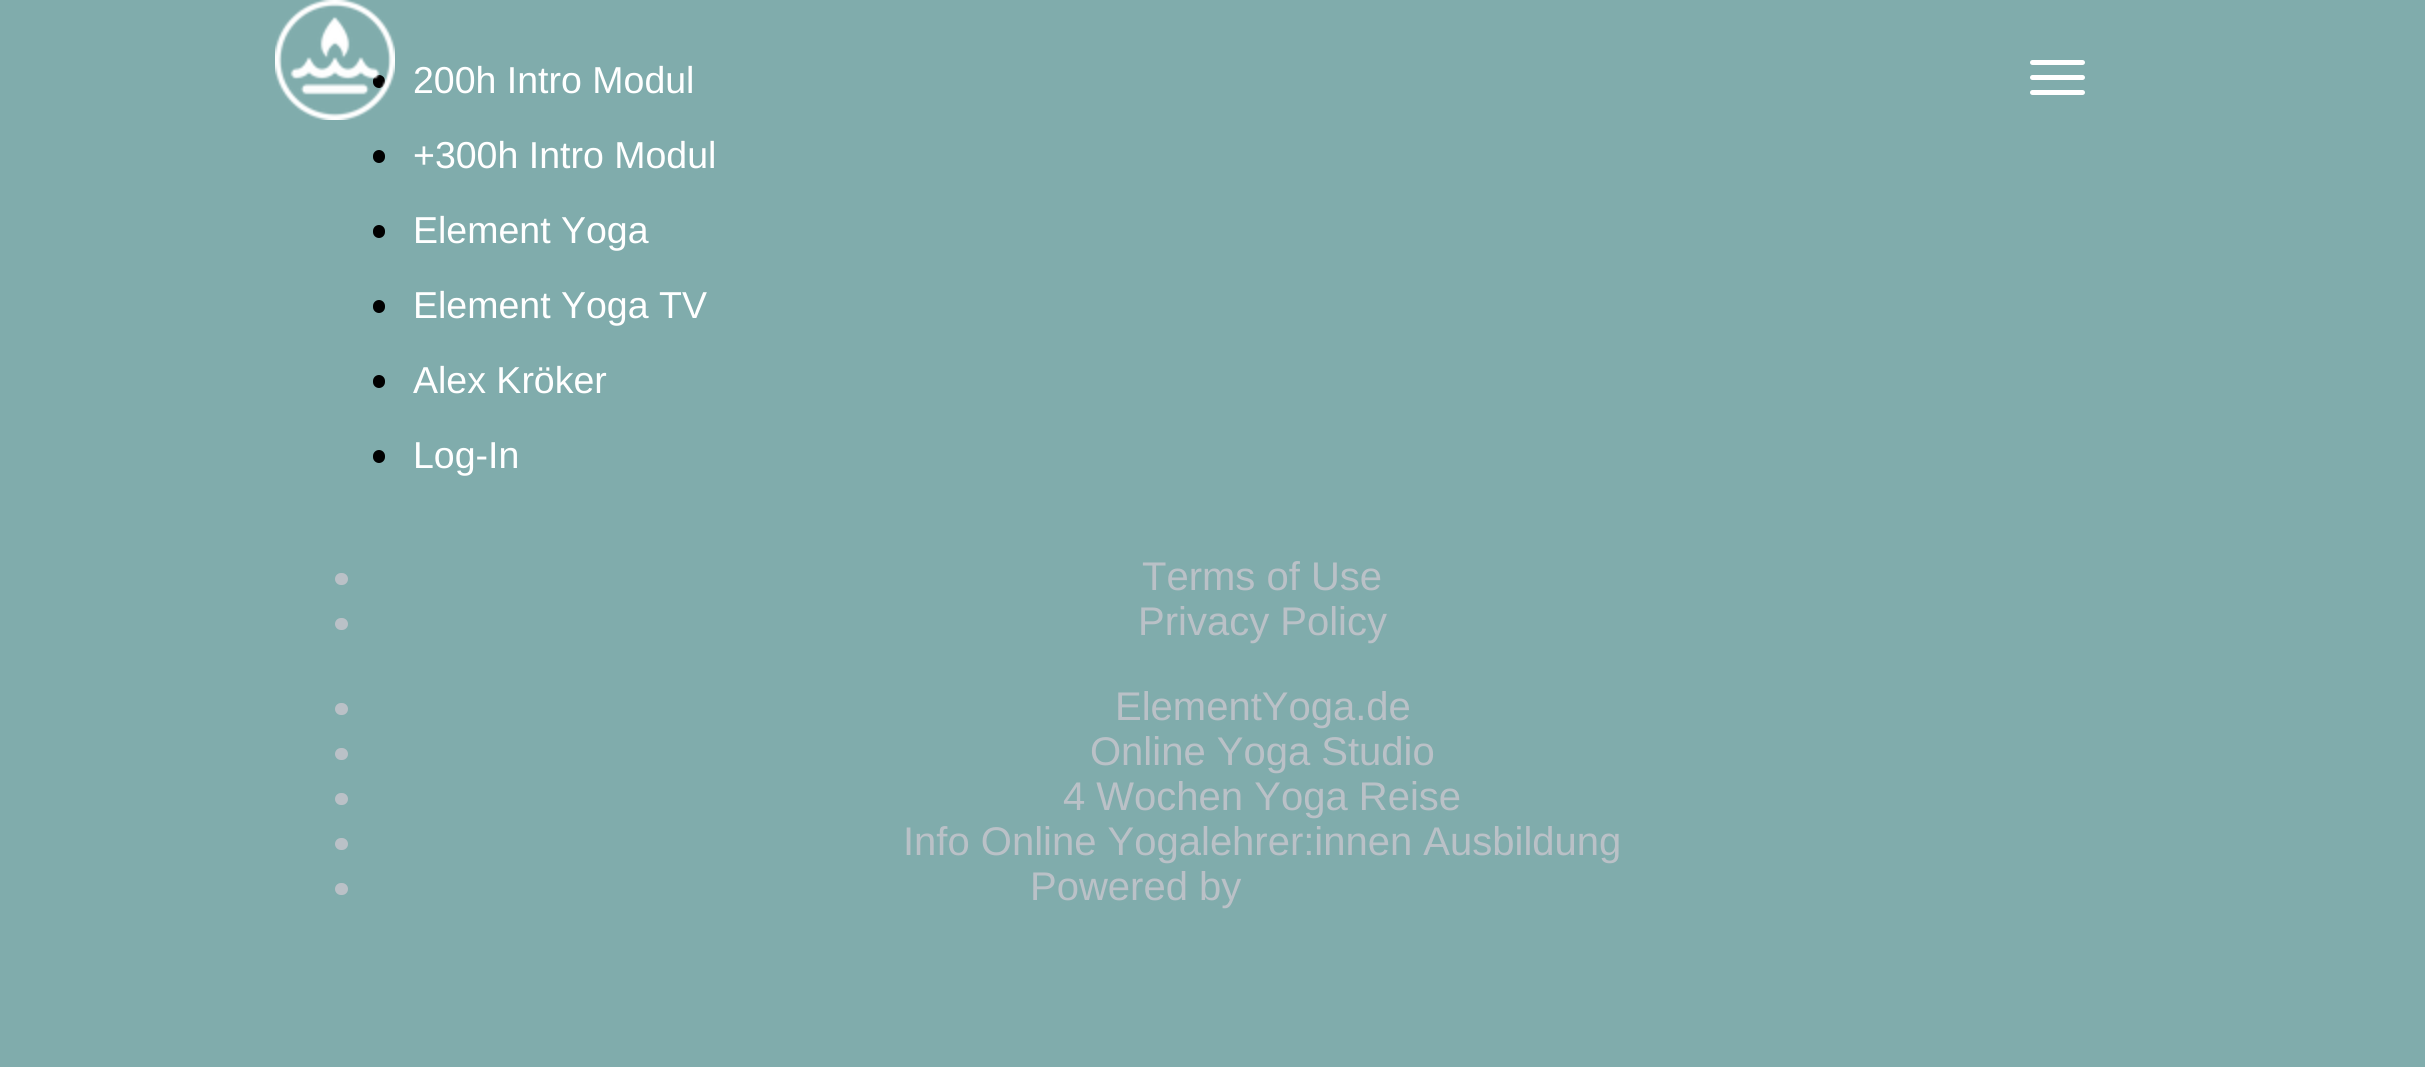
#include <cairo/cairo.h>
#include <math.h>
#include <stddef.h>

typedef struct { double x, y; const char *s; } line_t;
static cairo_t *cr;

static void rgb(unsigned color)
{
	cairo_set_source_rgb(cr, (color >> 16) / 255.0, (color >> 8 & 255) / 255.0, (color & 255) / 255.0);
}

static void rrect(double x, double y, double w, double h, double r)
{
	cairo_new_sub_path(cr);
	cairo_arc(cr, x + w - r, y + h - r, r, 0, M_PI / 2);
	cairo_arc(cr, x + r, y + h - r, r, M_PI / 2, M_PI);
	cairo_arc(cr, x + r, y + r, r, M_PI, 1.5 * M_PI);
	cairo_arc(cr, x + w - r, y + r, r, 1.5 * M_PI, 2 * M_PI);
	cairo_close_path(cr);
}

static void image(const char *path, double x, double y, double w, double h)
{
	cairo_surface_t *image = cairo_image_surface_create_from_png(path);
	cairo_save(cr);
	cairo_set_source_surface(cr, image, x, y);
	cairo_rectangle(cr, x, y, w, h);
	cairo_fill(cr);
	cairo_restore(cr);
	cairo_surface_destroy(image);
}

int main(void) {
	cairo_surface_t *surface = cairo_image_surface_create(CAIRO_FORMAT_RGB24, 2425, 1067);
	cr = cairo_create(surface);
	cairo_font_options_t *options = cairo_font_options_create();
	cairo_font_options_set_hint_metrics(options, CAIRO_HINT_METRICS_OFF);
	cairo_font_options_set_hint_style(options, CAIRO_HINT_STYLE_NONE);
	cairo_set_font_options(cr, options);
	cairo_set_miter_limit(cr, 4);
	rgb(0x80acac);
	cairo_paint(cr);
	rgb(0x000000);
	rrect(373, 75, 12, 13, 6);
	cairo_fill(cr);
	image("img/1.png", 275, 0, 120, 120);
	rrect(373, 150, 12, 13, 6);
	cairo_fill(cr);
	rrect(373, 225, 12, 13, 6);
	cairo_fill(cr);
	rrect(373, 300, 12, 13, 6);
	cairo_fill(cr);
	rrect(373, 375, 12, 13, 6);
	cairo_fill(cr);
	rrect(373, 450, 12, 13, 6);
	cairo_fill(cr);
	rgb(0xffffff);
	rrect(2030, 60, 55, 5, 2.5);
	cairo_fill(cr);
	rrect(2030, 75, 55, 5, 2.5);
	cairo_fill(cr);
	rrect(2030, 90, 55, 5, 2.5);
	cairo_fill(cr);
	rgb(0xbac1c7);
	rrect(335, 573, 13, 12, 6);
	cairo_fill(cr);
	rrect(335, 618, 13, 12, 6);
	cairo_fill(cr);
	rrect(335, 703, 13, 12, 6);
	cairo_fill(cr);
	rrect(335, 748, 13, 12, 6);
	cairo_fill(cr);
	rrect(335, 793, 13, 12, 6);
	cairo_fill(cr);
	rrect(335, 838, 13, 12, 6);
	cairo_fill(cr);
	rrect(335, 883, 13, 12, 6);
	cairo_fill(cr);
	cairo_select_font_face(cr, "Liberation Sans", CAIRO_FONT_SLANT_NORMAL, CAIRO_FONT_WEIGHT_NORMAL);
	cairo_set_font_size(cr, 37.5);
	rgb(0xffffff);
	{
		static const line_t items[] = {
			{413, 93, "200h Intro Modul"},
			{413, 168, "+300h Intro Modul"},
			{413, 243, "Element Yoga"},
			{413, 318, "Element Yoga TV"},
			{413, 393, "Alex Kröker"},
			{413, 468, "Log-In"},
		};
		for (size_t i = 0; i < sizeof items / sizeof *items; i++) {
			cairo_move_to(cr, items[i].x, items[i].y);
			cairo_show_text(cr, items[i].s);
		}
	}
	cairo_set_font_size(cr, 40);
	rgb(0xbac1c7);
	{
		static const line_t items[] = {
			{1142, 590, "Terms of Use"},
			{1138, 635, "Privacy Policy"},
			{1115, 720, "ElementYoga.de"},
			{1090, 765, "Online Yoga Studio"},
			{1063, 810, "4 Wochen Yoga Reise"},
			{903, 855, "Info Online Yogalehrer:innen Ausbildung"},
			{1030, 900, "Powered by"},
		};
		for (size_t i = 0; i < sizeof items / sizeof *items; i++) {
			cairo_move_to(cr, items[i].x, items[i].y);
			cairo_show_text(cr, items[i].s);
		}
	}
	cairo_surface_write_to_png(surface, "page.png");
	cairo_font_options_destroy(options);
	cairo_destroy(cr);
	cairo_surface_destroy(surface);
	return 0;
}
